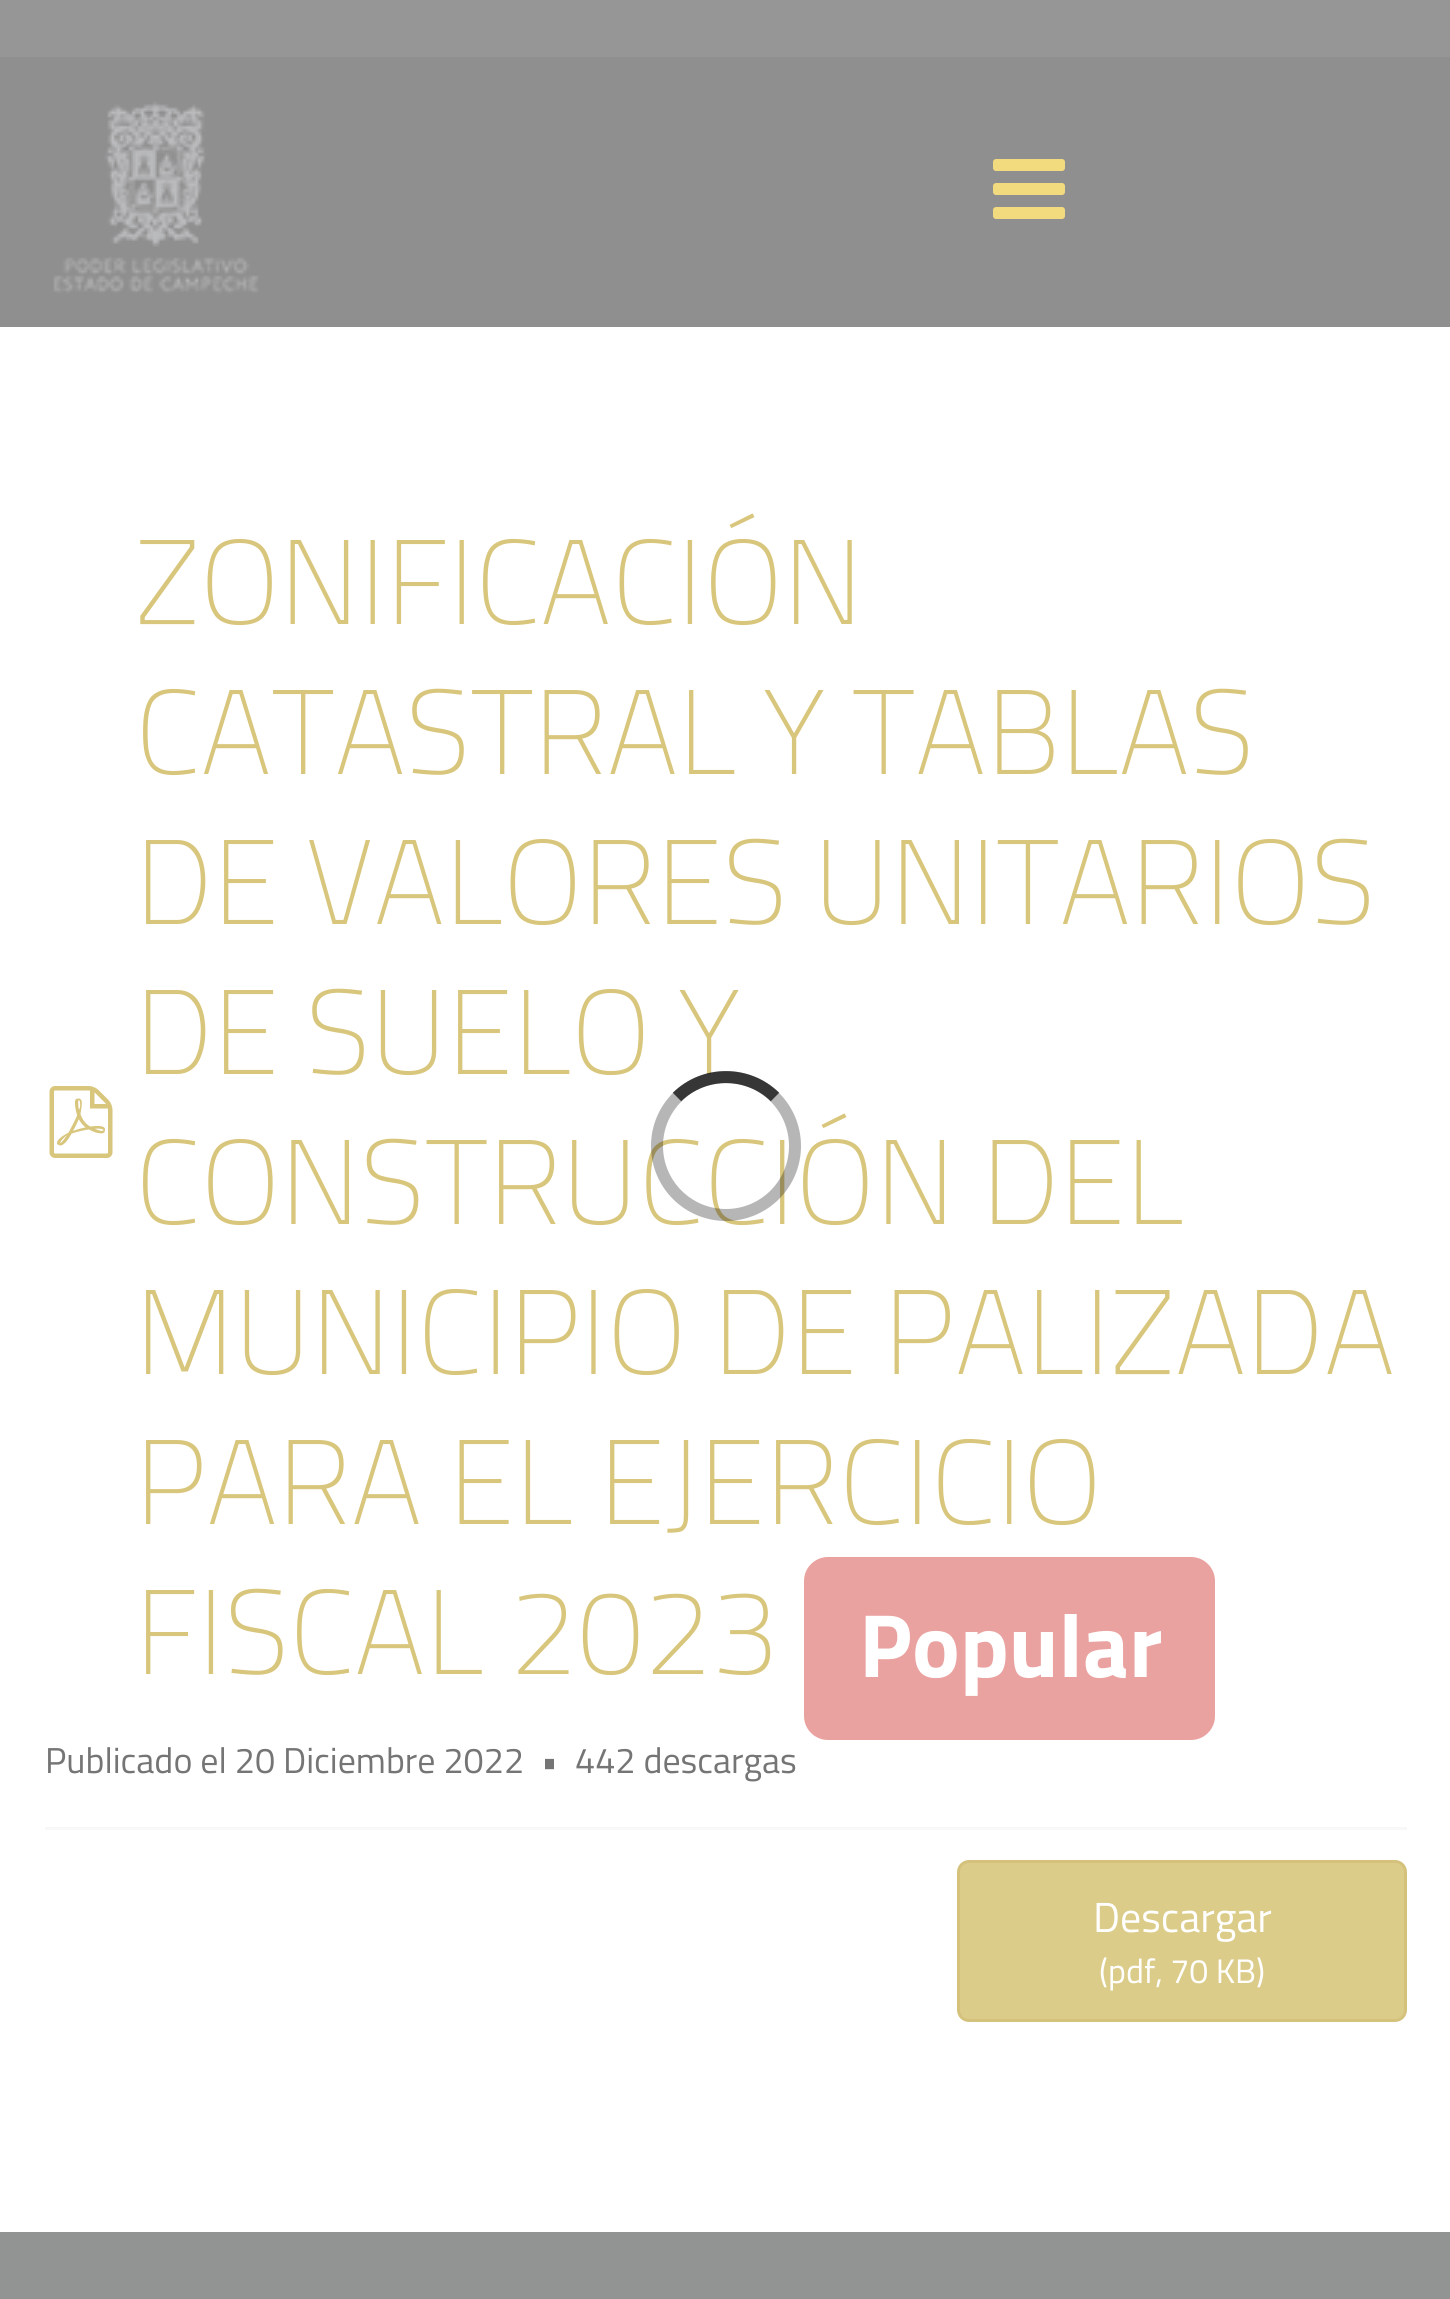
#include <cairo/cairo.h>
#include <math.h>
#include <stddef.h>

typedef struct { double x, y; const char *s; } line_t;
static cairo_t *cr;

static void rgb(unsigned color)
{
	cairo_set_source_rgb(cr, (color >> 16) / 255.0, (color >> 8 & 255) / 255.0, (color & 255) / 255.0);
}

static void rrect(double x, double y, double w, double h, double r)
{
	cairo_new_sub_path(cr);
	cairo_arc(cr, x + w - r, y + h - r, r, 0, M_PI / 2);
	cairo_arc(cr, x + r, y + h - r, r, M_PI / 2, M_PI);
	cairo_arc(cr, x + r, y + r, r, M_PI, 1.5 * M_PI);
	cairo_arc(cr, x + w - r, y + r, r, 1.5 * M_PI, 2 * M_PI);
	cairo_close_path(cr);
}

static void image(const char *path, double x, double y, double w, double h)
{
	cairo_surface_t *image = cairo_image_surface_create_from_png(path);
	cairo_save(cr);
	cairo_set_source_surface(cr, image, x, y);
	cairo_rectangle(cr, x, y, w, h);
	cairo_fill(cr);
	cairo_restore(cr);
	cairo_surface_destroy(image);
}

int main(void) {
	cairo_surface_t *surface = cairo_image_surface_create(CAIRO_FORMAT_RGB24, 1450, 2299);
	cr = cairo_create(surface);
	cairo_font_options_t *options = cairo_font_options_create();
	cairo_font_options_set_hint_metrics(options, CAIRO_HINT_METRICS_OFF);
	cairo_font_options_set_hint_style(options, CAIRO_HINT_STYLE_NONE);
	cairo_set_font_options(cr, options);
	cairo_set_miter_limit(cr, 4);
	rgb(0xffffff);
	cairo_paint(cr);
	rgb(0x969696);
	cairo_rectangle(cr, 0, 0, 1450, 57);
	cairo_fill(cr);
	rgb(0x8f8f8f);
	cairo_rectangle(cr, 0, 57, 1450, 270);
	cairo_fill(cr);
	image("img/1.png", 53, 101, 206, 193);
	image("img/2.png", 993, 159, 72, 60);
	image("img/3.png", 49, 1086, 64, 72);
	rgb(0xeaa2a0);
	rrect(804, 1557, 411, 183, 24);
	cairo_fill(cr);
	rgb(0xf8f8f8);
	cairo_rectangle(cr, 45, 1827, 1362, 3);
	cairo_fill(cr);
	rgb(0xdccc8a);
	rrect(958.5, 1861.5, 447, 159, 10.5);
	cairo_fill_preserve(cr);
	rgb(0xd4c27c);
	cairo_set_line_width(cr, 3);
	cairo_stroke(cr);
	rgb(0x929494);
	cairo_rectangle(cr, 0, 2232, 1450, 67);
	cairo_fill(cr);
	cairo_select_font_face(cr, "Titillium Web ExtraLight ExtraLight", CAIRO_FONT_SLANT_NORMAL, CAIRO_FONT_WEIGHT_NORMAL);
	cairo_set_font_size(cr, 120);
	rgb(0xd9c67d);
	{
		static const line_t items[] = {
			{135, 624, "ZONIFICACIÓN"},
			{135, 774, "CATASTRAL Y TABLAS"},
			{135, 924, "DE VALORES UNITARIOS"},
			{135, 1074, "DE SUELO Y"},
			{135, 1224, "CONSTRUCCIÓN DEL"},
			{135, 1374, "MUNICIPIO DE PALIZADA"},
			{135, 1524, "PARA EL EJERCICIO"},
			{135, 1674, "FISCAL 2023"},
		};
		for (size_t i = 0; i < sizeof items / sizeof *items; i++) {
			cairo_move_to(cr, items[i].x, items[i].y);
			cairo_show_text(cr, items[i].s);
		}
	}
	cairo_select_font_face(cr, "Titillium Web", CAIRO_FONT_SLANT_NORMAL, CAIRO_FONT_WEIGHT_BOLD);
	cairo_set_font_size(cr, 90);
	rgb(0xffffff);
	cairo_move_to(cr, 859, 1677);
	cairo_show_text(cr, "Popular");
	cairo_select_font_face(cr, "Titillium Web", CAIRO_FONT_SLANT_NORMAL, CAIRO_FONT_WEIGHT_NORMAL);
	cairo_set_font_size(cr, 36);
	rgb(0x757575);
	{
		static const line_t items[] = {
			{45, 1773, "Publicado el 20 Diciembre 2022"},
			{541, 1773, "•"},
			{575, 1773, "442 descargas"},
		};
		for (size_t i = 0; i < sizeof items / sizeof *items; i++) {
			cairo_move_to(cr, items[i].x, items[i].y);
			cairo_show_text(cr, items[i].s);
		}
	}
	cairo_set_font_size(cr, 42);
	rgb(0xffffff);
	cairo_move_to(cr, 1093, 1932);
	cairo_show_text(cr, "Descargar");
	cairo_set_font_size(cr, 34);
	cairo_move_to(cr, 1099, 1983);
	cairo_show_text(cr, "(pdf, 70 KB)");
	cairo_new_path(cr);
	cairo_arc(cr, 726, 1146, 69, 0, 2 * M_PI);
	cairo_set_source_rgba(cr, 0.02, 0.02, 0.02, 0.29);
	cairo_set_line_width(cr, 12);
	cairo_stroke(cr);
	cairo_new_path(cr);
	cairo_move_to(cr, 677, 1097);
	cairo_curve_to(cr, 704, 1070.5, 748, 1070.5, 775, 1097);
	cairo_set_source_rgba(cr, 0.02, 0.02, 0.02, 0.72);
	cairo_stroke(cr);
	cairo_surface_write_to_png(surface, "page.png");
	cairo_font_options_destroy(options);
	cairo_destroy(cr);
	cairo_surface_destroy(surface);
	return 0;
}
